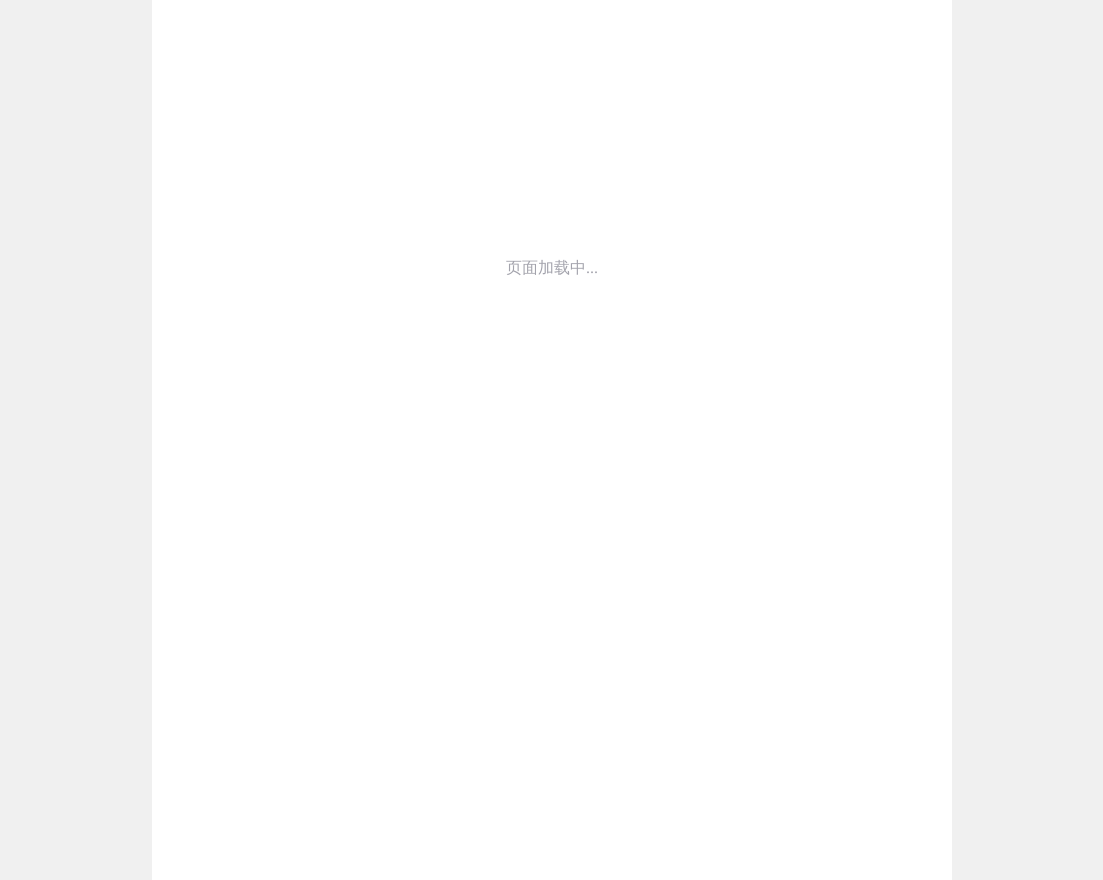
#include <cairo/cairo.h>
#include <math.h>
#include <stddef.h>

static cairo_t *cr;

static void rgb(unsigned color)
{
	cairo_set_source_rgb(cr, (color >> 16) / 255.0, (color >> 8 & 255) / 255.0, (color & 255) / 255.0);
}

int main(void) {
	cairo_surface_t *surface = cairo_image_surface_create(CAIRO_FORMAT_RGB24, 1103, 880);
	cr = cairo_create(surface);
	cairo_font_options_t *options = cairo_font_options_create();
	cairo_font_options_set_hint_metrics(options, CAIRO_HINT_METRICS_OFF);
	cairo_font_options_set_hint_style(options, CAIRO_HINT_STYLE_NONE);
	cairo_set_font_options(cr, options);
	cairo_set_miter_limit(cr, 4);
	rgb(0xf0f0f0);
	cairo_paint(cr);
	rgb(0xffffff);
	cairo_rectangle(cr, 152, 0, 800, 880);
	cairo_fill(cr);
	cairo_select_font_face(cr, "WenQuanYi Zen Hei Medium", CAIRO_FONT_SLANT_NORMAL, CAIRO_FONT_WEIGHT_NORMAL);
	cairo_set_font_size(cr, 16);
	rgb(0xa3a3ac);
	cairo_move_to(cr, 506, 273);
	cairo_show_text(cr, "页面加载中");
	cairo_select_font_face(cr, "Liberation Serif", CAIRO_FONT_SLANT_NORMAL, CAIRO_FONT_WEIGHT_NORMAL);
	cairo_move_to(cr, 586, 273);
	cairo_show_text(cr, "...");
	cairo_surface_write_to_png(surface, "page.png");
	cairo_font_options_destroy(options);
	cairo_destroy(cr);
	cairo_surface_destroy(surface);
	return 0;
}
